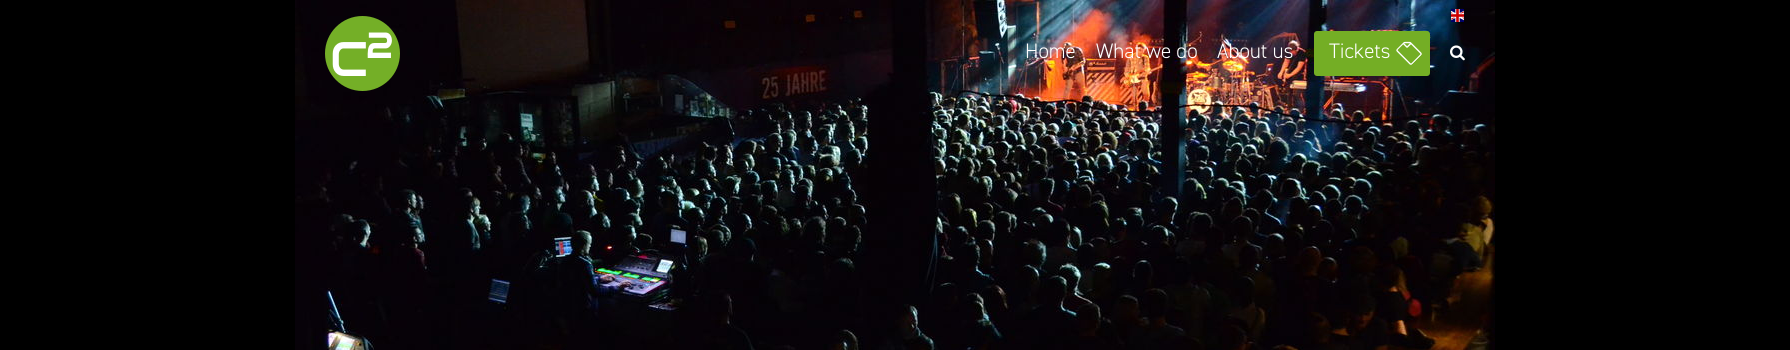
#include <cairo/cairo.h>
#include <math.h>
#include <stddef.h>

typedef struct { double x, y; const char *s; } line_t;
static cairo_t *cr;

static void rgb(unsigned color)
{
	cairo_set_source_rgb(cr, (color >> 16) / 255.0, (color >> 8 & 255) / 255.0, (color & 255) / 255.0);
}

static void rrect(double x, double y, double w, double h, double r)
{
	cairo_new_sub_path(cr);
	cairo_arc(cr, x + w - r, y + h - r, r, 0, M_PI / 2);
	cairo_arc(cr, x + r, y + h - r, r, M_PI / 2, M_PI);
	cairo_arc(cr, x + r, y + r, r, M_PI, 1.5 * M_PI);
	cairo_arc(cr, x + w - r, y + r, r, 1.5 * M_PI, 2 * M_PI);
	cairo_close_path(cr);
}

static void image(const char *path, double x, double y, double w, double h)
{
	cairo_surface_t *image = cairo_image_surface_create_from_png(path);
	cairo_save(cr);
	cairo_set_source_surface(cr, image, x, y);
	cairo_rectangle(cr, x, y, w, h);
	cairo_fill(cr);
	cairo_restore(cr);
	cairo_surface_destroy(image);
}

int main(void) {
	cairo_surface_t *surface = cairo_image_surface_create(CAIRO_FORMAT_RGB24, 1790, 350);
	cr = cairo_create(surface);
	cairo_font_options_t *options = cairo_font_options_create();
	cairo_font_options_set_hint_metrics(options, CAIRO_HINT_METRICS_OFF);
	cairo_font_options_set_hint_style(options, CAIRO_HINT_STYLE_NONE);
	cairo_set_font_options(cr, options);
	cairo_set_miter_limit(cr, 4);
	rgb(0x000000);
	cairo_paint(cr);
	image("img/1.png", 295, 0, 1200, 350);
	image("img/2.png", 1451, 9, 13, 13);
	image("img/3.png", 325, 16, 75, 75);
	rgb(0x74ae25);
	rrect(1314, 31, 116, 45, 3);
	cairo_fill(cr);
	image("img/4.png", 1396, 41, 26, 24);
	image("img/5.png", 1450, 45, 15, 16);
	cairo_select_font_face(cr, "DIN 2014 Light", CAIRO_FONT_SLANT_NORMAL, CAIRO_FONT_WEIGHT_NORMAL);
	cairo_set_font_size(cr, 21);
	rgb(0xffffff);
	{
		static const line_t items[] = {
			{1025, 58, "Home"},
			{1096, 58, "What we do"},
			{1217, 58, "About us"},
			{1329, 58, "Tickets"},
		};
		for (size_t i = 0; i < sizeof items / sizeof *items; i++) {
			cairo_move_to(cr, items[i].x, items[i].y);
			cairo_show_text(cr, items[i].s);
		}
	}
	cairo_surface_write_to_png(surface, "page.png");
	cairo_font_options_destroy(options);
	cairo_destroy(cr);
	cairo_surface_destroy(surface);
	return 0;
}
